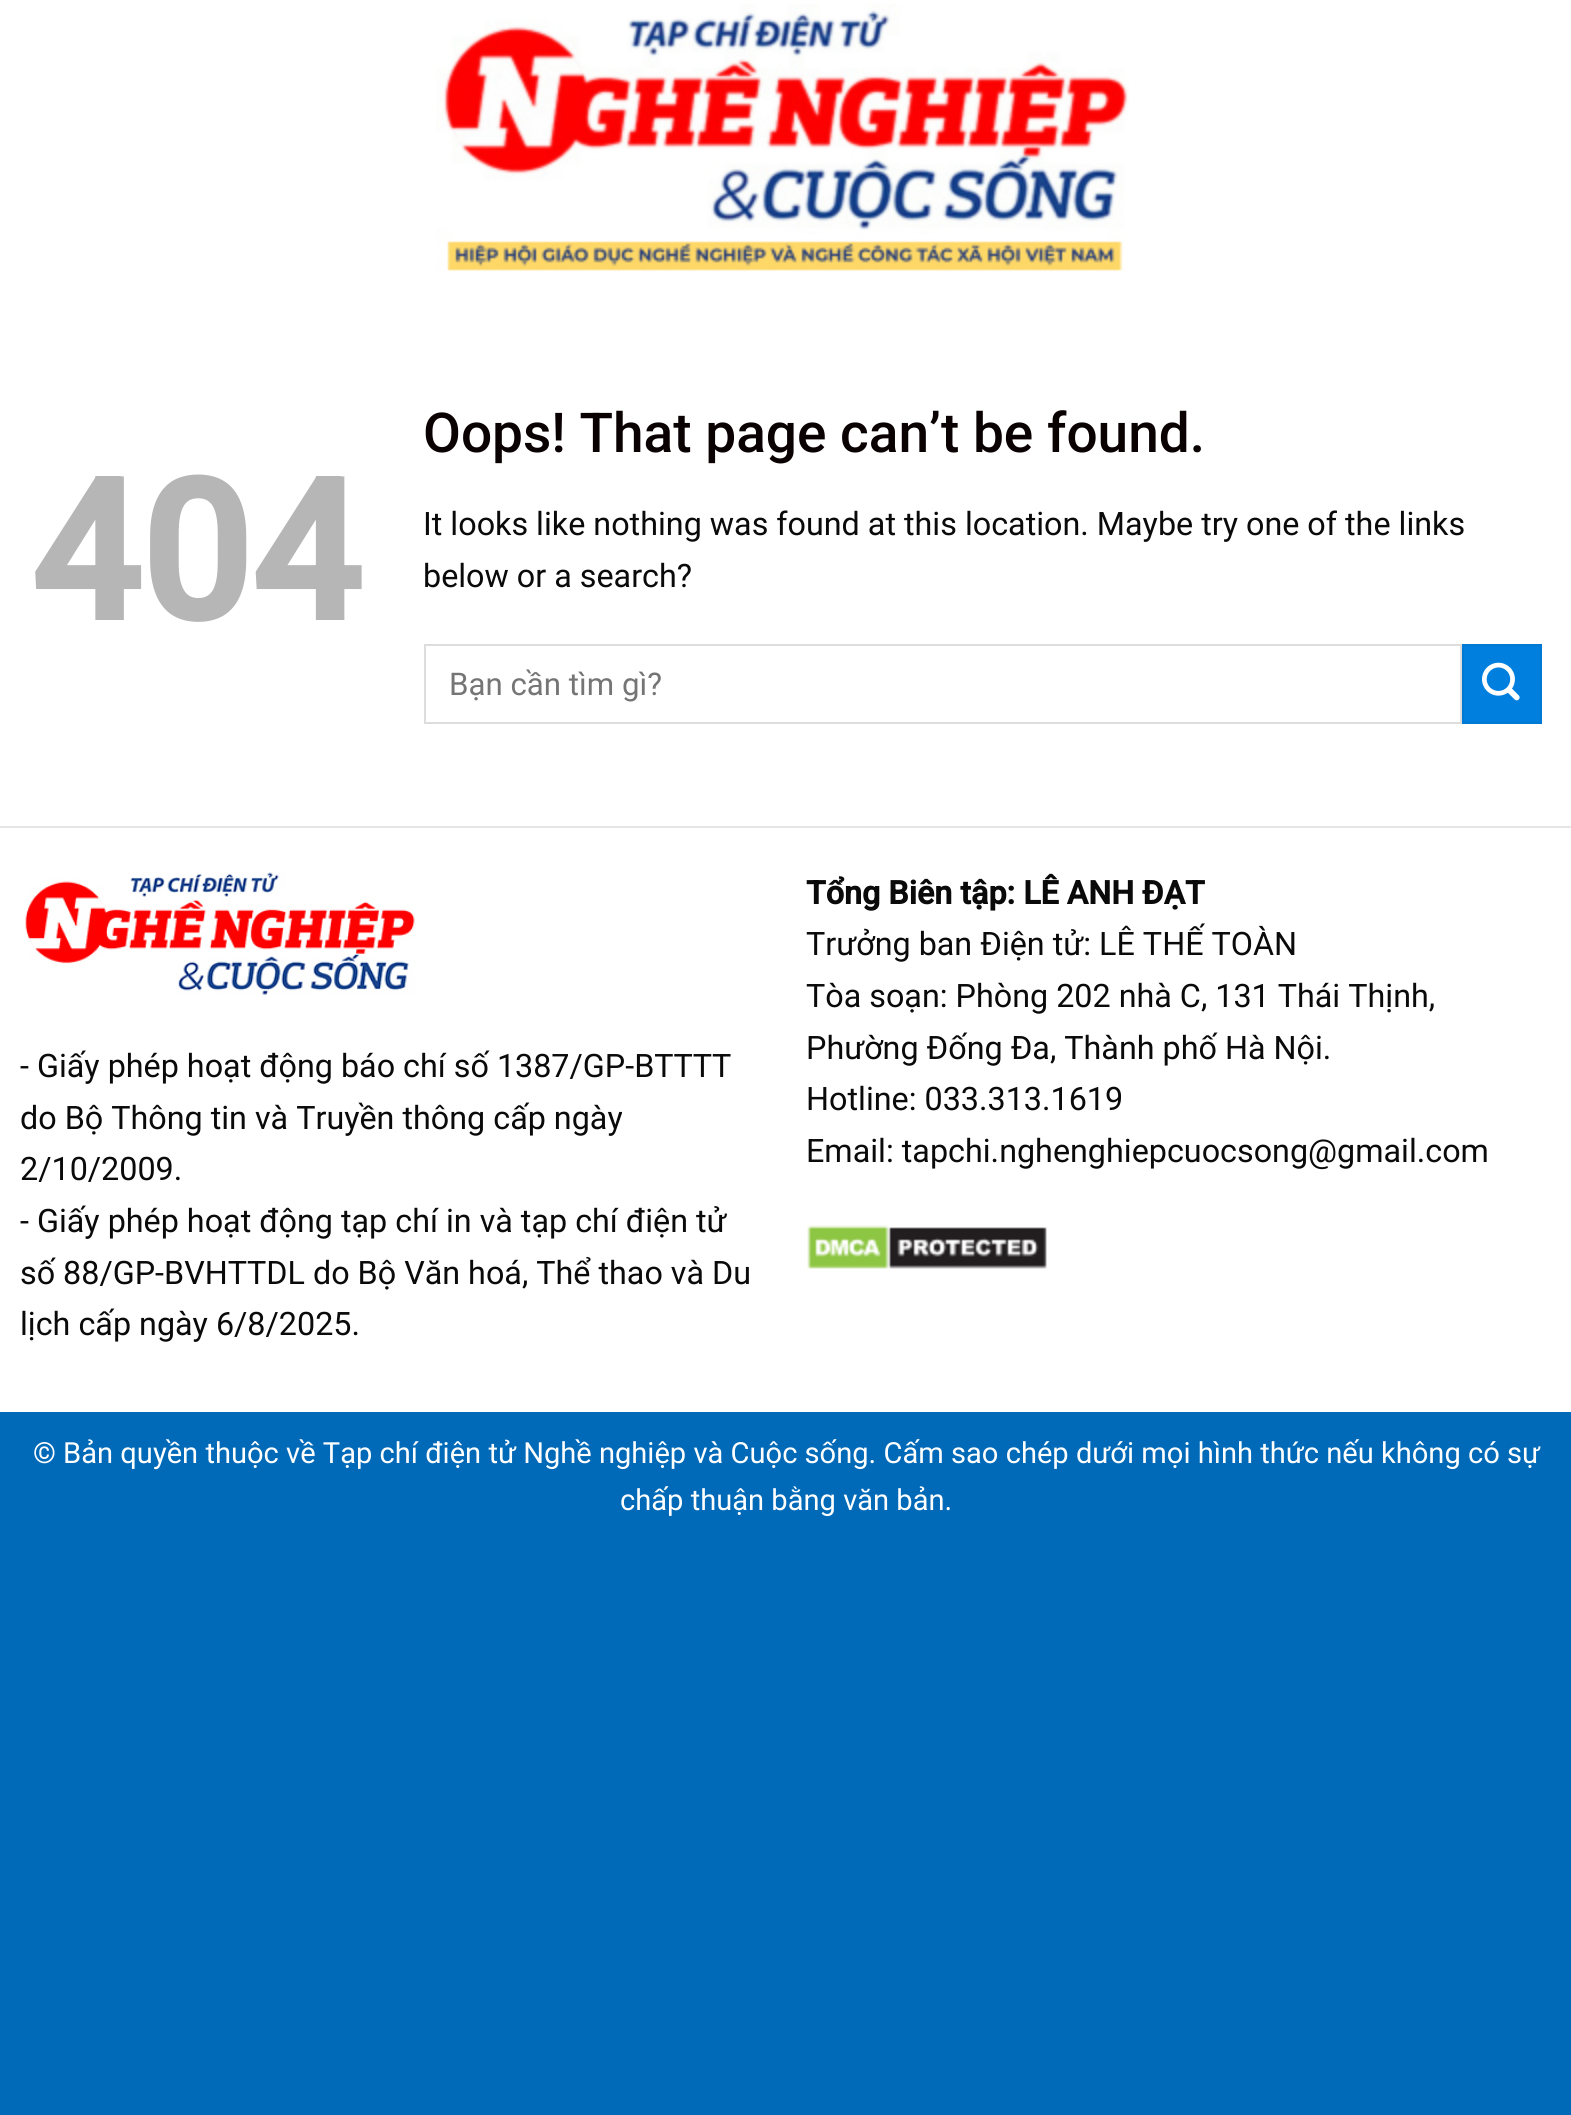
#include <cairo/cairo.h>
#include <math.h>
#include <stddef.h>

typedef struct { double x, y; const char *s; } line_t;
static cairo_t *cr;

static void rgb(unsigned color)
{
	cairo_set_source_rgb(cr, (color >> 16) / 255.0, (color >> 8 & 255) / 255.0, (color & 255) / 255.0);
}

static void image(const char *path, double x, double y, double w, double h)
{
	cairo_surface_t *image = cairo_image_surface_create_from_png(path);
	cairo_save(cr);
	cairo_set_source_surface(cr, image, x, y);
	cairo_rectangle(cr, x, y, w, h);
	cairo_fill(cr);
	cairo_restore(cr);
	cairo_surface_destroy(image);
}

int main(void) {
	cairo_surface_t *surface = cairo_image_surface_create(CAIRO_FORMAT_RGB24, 1571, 2115);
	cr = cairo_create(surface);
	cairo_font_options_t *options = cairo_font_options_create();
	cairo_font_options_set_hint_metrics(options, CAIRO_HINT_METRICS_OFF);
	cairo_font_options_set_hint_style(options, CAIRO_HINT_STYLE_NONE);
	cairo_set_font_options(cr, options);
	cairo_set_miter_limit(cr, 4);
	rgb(0x0069b8);
	cairo_paint(cr);
	rgb(0xffffff);
	cairo_rectangle(cr, 0, 0, 1571, 1412);
	cairo_fill(cr);
	image("img/1.png", 436, 4, 693, 268);
	cairo_rectangle(cr, 425, 645, 1036, 78);
	rgb(0xdddddd);
	cairo_stroke(cr);
	rgb(0x007fde);
	cairo_rectangle(cr, 1463, 645, 78, 78);
	cairo_fill_preserve(cr);
	rgb(0x0079d3);
	cairo_stroke(cr);
	image("img/2.png", 1482, 662, 38, 39);
	rgb(0xe6e6e6);
	cairo_rectangle(cr, 0, 826, 1571, 2);
	cairo_fill(cr);
	image("img/3.png", 25, 872, 390, 123);
	image("img/4.png", 807, 1225, 240, 44);
	cairo_select_font_face(cr, "Roboto", CAIRO_FONT_SLANT_NORMAL, CAIRO_FONT_WEIGHT_BOLD);
	cairo_set_font_size(cr, 194);
	rgb(0xb6b6b6);
	cairo_move_to(cr, 30, 620);
	cairo_show_text(cr, "404");
	cairo_select_font_face(cr, "Roboto Medium", CAIRO_FONT_SLANT_NORMAL, CAIRO_FONT_WEIGHT_NORMAL);
	cairo_set_font_size(cr, 55);
	rgb(0x0a0103);
	cairo_move_to(cr, 423, 452);
	cairo_show_text(cr, "Oops! That page can’t be found.");
	cairo_select_font_face(cr, "Roboto", CAIRO_FONT_SLANT_NORMAL, CAIRO_FONT_WEIGHT_NORMAL);
	cairo_set_font_size(cr, 32.3);
	rgb(0x0a0a0a);
	cairo_move_to(cr, 423, 535);
	cairo_show_text(cr, "It looks like nothing was found at this location. Maybe try one of the links");
	cairo_move_to(cr, 423, 587);
	cairo_show_text(cr, "below or a search?");
	cairo_set_font_size(cr, 31.25);
	rgb(0x757575);
	cairo_move_to(cr, 449, 695);
	cairo_show_text(cr, "Bạn cần tìm gì?");
	cairo_set_font_size(cr, 32.3);
	rgb(0x0a0a0a);
	{
		static const line_t items[] = {
			{20, 1077, "- Giấy phép hoạt động báo chí số 1387/GP-BTTTT"},
			{20, 1129, "do Bộ Thông tin và Truyền thông cấp ngày"},
			{20, 1180, "2/10/2009."},
			{20, 1232, "- Giấy phép hoạt động tạp chí in và tạp chí điện tử"},
			{20, 1284, "số 88/GP-BVHTTDL do Bộ Văn hoá, Thể thao và Du"},
			{20, 1335, "lịch cấp ngày 6/8/2025."},
		};
		for (size_t i = 0; i < sizeof items / sizeof *items; i++) {
			cairo_move_to(cr, items[i].x, items[i].y);
			cairo_show_text(cr, items[i].s);
		}
	}
	cairo_select_font_face(cr, "Roboto", CAIRO_FONT_SLANT_NORMAL, CAIRO_FONT_WEIGHT_BOLD);
	cairo_move_to(cr, 806, 904);
	cairo_show_text(cr, "Tổng Biên tập: LÊ ANH ĐẠT");
	cairo_select_font_face(cr, "Roboto", CAIRO_FONT_SLANT_NORMAL, CAIRO_FONT_WEIGHT_NORMAL);
	{
		static const line_t items[] = {
			{806, 955, "Trưởng ban Điện tử: LÊ THẾ TOÀN"},
			{806, 1007, "Tòa soạn: Phòng 202 nhà C, 131 Thái Thịnh,"},
			{806, 1059, "Phường Đống Đa, Thành phố Hà Nội."},
			{806, 1110, "Hotline: 033.313.1619"},
			{806, 1162, "Email: tapchi.nghenghiepcuocsong@gmail.com"},
		};
		for (size_t i = 0; i < sizeof items / sizeof *items; i++) {
			cairo_move_to(cr, items[i].x, items[i].y);
			cairo_show_text(cr, items[i].s);
		}
	}
	cairo_set_font_size(cr, 29.1);
	rgb(0xffffff);
	cairo_move_to(cr, 33, 1463);
	cairo_show_text(cr, "© Bản quyền thuộc về Tạp chí điện tử Nghề nghiệp và Cuộc sống. Cấm sao chép dưới mọi hình thức nếu không có sự");
	cairo_move_to(cr, 620, 1510);
	cairo_show_text(cr, "chấp thuận bằng văn bản.");
	cairo_surface_write_to_png(surface, "page.png");
	cairo_font_options_destroy(options);
	cairo_destroy(cr);
	cairo_surface_destroy(surface);
	return 0;
}
